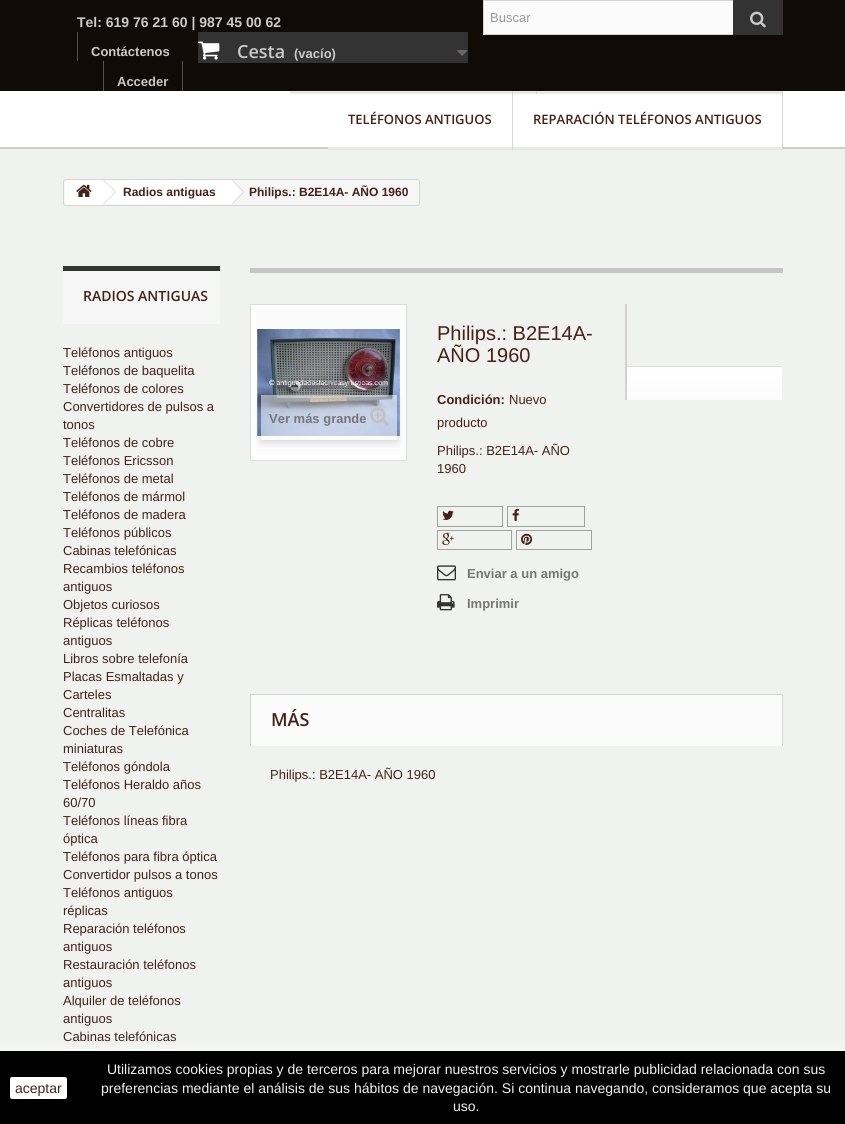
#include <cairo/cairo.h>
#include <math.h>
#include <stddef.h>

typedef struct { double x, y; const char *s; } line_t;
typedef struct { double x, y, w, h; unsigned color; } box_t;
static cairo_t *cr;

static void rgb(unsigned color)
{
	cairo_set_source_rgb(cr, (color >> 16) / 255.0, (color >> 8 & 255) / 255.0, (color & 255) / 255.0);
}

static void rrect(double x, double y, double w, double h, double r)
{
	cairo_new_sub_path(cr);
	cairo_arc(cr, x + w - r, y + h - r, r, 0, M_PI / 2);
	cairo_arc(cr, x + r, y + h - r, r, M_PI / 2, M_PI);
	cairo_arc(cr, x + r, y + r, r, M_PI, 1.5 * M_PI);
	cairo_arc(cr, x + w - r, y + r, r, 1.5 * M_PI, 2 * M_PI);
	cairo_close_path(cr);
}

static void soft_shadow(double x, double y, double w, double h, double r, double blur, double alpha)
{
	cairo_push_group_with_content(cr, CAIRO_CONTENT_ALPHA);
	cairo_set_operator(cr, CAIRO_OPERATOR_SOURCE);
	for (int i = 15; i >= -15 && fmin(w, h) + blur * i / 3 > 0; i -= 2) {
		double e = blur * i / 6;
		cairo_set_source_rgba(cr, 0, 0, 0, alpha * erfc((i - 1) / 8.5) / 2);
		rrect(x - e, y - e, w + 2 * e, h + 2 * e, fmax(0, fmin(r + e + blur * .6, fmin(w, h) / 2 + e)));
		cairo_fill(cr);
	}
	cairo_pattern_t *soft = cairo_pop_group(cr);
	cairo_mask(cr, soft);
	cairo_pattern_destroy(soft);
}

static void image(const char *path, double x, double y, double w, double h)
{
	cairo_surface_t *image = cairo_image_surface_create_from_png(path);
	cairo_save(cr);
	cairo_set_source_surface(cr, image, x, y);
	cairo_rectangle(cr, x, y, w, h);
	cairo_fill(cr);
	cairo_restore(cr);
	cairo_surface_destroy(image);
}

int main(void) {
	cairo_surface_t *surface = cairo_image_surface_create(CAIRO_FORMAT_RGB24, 845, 1124);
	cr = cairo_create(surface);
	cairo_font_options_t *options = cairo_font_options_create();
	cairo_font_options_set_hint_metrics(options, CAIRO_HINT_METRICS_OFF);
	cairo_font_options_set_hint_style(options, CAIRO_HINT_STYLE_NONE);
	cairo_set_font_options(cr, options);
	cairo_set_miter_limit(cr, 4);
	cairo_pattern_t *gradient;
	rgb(0xf0f2ef);
	cairo_paint(cr);
	rgb(0x100b06);
	cairo_rectangle(cr, 0, 0, 845, 91);
	cairo_fill(cr);
	rgb(0xfbfbfb);
	cairo_rectangle(cr, 484, 1, 249, 33);
	cairo_fill(cr);
	cairo_rectangle(cr, 483.5, 0.5, 299, 34);
	rgb(0xd6d4d4);
	cairo_set_line_width(cr, 1);
	cairo_stroke(cr);
	rgb(0x333333);
	cairo_rectangle(cr, 733, 0, 50, 35);
	cairo_fill(cr);
	image("img/1.png", 750, 11, 16, 17);
	rgb(0x515151);
	cairo_rectangle(cr, 77, 32, 1, 29);
	cairo_fill(cr);
	rgb(0x333333);
	cairo_rectangle(cr, 198, 32, 270, 31);
	cairo_fill(cr);
	image("img/2.png", 198, 41, 22, 19);
	image("img/3.png", 457, 50, 11, 6);
	{
		static const box_t items[] = {
			{182, 61, 1, 30, 0x515151},
			{103, 61, 1, 30, 0x515151},
			{0, 91, 845, 56, 0xffffff},
			{0, 147, 845, 2, 0xcccccc},
			{536, 91, 1, 3, 0xd6d4d4},
			{290, 91, 246, 3, 0xe9e9e9},
			{537, 91, 245, 3, 0xe9e9e9},
			{512, 91, 1, 59, 0xd6d4d4},
			{328, 147, 184, 3, 0xe9e9e9},
			{782, 91, 1, 59, 0xd6d4d4},
			{513, 147, 269, 3, 0xe9e9e9},
		};
		for (size_t i = 0; i < sizeof items / sizeof *items; i++) {
			rgb(items[i].color);
			cairo_rectangle(cr, items[i].x, items[i].y, items[i].w, items[i].h);
			cairo_fill(cr);
		}
	}
	rgb(0xf6f6f6);
	rrect(63.5, 179.5, 356, 26, 2.5);
	cairo_fill_preserve(cr);
	rgb(0xd6d4d4);
	cairo_stroke(cr);
	rgb(0xffffff);
	cairo_new_path(cr);
	cairo_move_to(cr, 68, 180);
	cairo_line_to(cr, 103, 180);
	cairo_line_to(cr, 103, 205);
	cairo_line_to(cr, 68, 205);
	cairo_curve_to(cr, 66.5, 205, 65, 203.5, 65, 202);
	cairo_line_to(cr, 65, 183);
	cairo_curve_to(cr, 65, 181.5, 66.5, 180, 68, 180);
	cairo_close_path(cr);
	cairo_fill(cr);
	image("img/4.png", 76, 184, 16, 13);
	cairo_rectangle(cr, 103, 180, 128, 24);
	cairo_fill(cr);
	rgb(0xd6d4d4);
	cairo_new_path(cr);
	cairo_move_to(cr, 104, 180);
	cairo_line_to(cr, 115.5, 191.5);
	cairo_line_to(cr, 115, 192);
	cairo_line_to(cr, 103.5, 180.5);
	cairo_close_path(cr);
	cairo_move_to(cr, 115, 192);
	cairo_line_to(cr, 115.5, 192.5);
	cairo_line_to(cr, 104, 204);
	cairo_line_to(cr, 103.5, 203.5);
	cairo_close_path(cr);
	cairo_fill(cr);
	rgb(0xffffff);
	cairo_new_path(cr);
	cairo_move_to(cr, 233.5, 180.5);
	cairo_line_to(cr, 243, 190.5);
	cairo_curve_to(cr, 244, 191.5, 244, 192.5, 243, 193.5);
	cairo_line_to(cr, 233.5, 203.5);
	cairo_curve_to(cr, 232.5, 204, 231, 204, 230.5, 203.5);
	cairo_line_to(cr, 220.5, 193.5);
	cairo_curve_to(cr, 220, 192.5, 220, 191.5, 220.5, 190.5);
	cairo_line_to(cr, 230.5, 180.5);
	cairo_curve_to(cr, 231, 180, 232.5, 180, 233.5, 180.5);
	cairo_close_path(cr);
	cairo_fill(cr);
	rgb(0xd6d4d4);
	cairo_new_path(cr);
	cairo_move_to(cr, 232.5, 180);
	cairo_line_to(cr, 244, 191.5);
	cairo_line_to(cr, 243, 192);
	cairo_line_to(cr, 232, 180.5);
	cairo_close_path(cr);
	cairo_move_to(cr, 243, 192);
	cairo_line_to(cr, 244, 192.5);
	cairo_line_to(cr, 232.5, 204);
	cairo_line_to(cr, 232, 203.5);
	cairo_close_path(cr);
	cairo_fill(cr);
	{
		static const box_t items[] = {
			{63, 271, 157, 53, 0xf6f6f6},
			{63, 266, 157, 5, 0x333333},
			{250, 268, 533, 5, 0xc4c4c4},
		};
		for (size_t i = 0; i < sizeof items / sizeof *items; i++) {
			rgb(items[i].color);
			cairo_rectangle(cr, items[i].x, items[i].y, items[i].w, items[i].h);
			cairo_fill(cr);
		}
	}
	rgb(0xffffff);
	cairo_rectangle(cr, 250.5, 304.5, 156, 156);
	cairo_fill_preserve(cr);
	rgb(0xdbdbdb);
	cairo_stroke(cr);
	rgb(0xfbfbfb);
	cairo_rectangle(cr, 256, 310, 145, 145);
	cairo_fill(cr);
	image("img/5.png", 256, 328, 144, 109);
	cairo_save(cr);
	cairo_set_fill_rule(cr, CAIRO_FILL_RULE_EVEN_ODD);
	cairo_new_path(cr);
	cairo_move_to(cr, 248, 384);
	cairo_line_to(cr, 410, 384);
	cairo_line_to(cr, 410, 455);
	cairo_line_to(cr, 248, 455);
	cairo_close_path(cr);
	cairo_move_to(cr, 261, 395);
	cairo_line_to(cr, 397, 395);
	cairo_line_to(cr, 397, 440);
	cairo_line_to(cr, 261, 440);
	cairo_close_path(cr);
	cairo_clip(cr);
	rgb(0x000000);
	soft_shadow(261, 397, 136, 45, 0, 4, 0.16);
	cairo_restore(cr);
	cairo_set_source_rgba(cr, 1, 1, 1, 0.5);
	cairo_rectangle(cr, 261, 395, 136, 41);
	cairo_fill(cr);
	image("img/6.png", 370, 407, 19, 19);
	cairo_rectangle(cr, 437.5, 506.5, 65, 20);
	rgb(0xa1a1a1);
	cairo_stroke(cr);
	image("img/7.png", 442, 510, 12, 10);
	cairo_rectangle(cr, 507.5, 506.5, 77, 20);
	cairo_stroke(cr);
	image("img/8.png", 512, 508, 7, 13);
	cairo_rectangle(cr, 437.5, 530.5, 74, 19);
	cairo_stroke(cr);
	image("img/9.png", 442, 532, 12, 13);
	cairo_rectangle(cr, 516.5, 530.5, 75, 19);
	cairo_stroke(cr);
	image("img/10.png", 521, 533, 12, 12);
	image("img/11.png", 437, 565, 19, 16);
	image("img/12.png", 437, 594, 18, 17);
	rgb(0xd2d0d0);
	cairo_rectangle(cr, 625, 304, 2, 96);
	cairo_fill(cr);
	gradient = cairo_pattern_create_linear(705, 367, 705, 400);
	cairo_pattern_add_color_stop_rgba(gradient, 0, 1, 1, 1, 1);
	cairo_pattern_add_color_stop_rgba(gradient, 1, 0.984, 0.984, 0.984, 1);
	cairo_set_source(cr, gradient);
	cairo_pattern_destroy(gradient);
	cairo_rectangle(cr, 627, 367, 155, 33);
	cairo_fill(cr);
	{
		static const box_t items[] = {
			{627, 366, 155, 1, 0xdfdede},
			{251, 695, 531, 51, 0xfbfbfb},
			{250, 694, 533, 1, 0xd6d4d4},
			{782, 694, 1, 52, 0xd6d4d4},
			{250, 694, 1, 52, 0xd6d4d4},
		};
		for (size_t i = 0; i < sizeof items / sizeof *items; i++) {
			rgb(items[i].color);
			cairo_rectangle(cr, items[i].x, items[i].y, items[i].w, items[i].h);
			cairo_fill(cr);
		}
	}
	rgb(0xffffff);
	soft_shadow(0, 1051, 845, 73, 0, 5, 1);
	rgb(0x000000);
	cairo_rectangle(cr, 0, 1051, 845, 73);
	cairo_fill(cr);
	rgb(0xffffff);
	rrect(10, 1077, 57, 22, 2);
	cairo_fill(cr);
	cairo_select_font_face(cr, "Liberation Sans", CAIRO_FONT_SLANT_NORMAL, CAIRO_FONT_WEIGHT_BOLD);
	cairo_set_font_size(cr, 14);
	rgb(0xcacaca);
	cairo_move_to(cr, 77, 27);
	cairo_show_text(cr, "Tel: 619 76 21 60 | 987 45 00 62");
	cairo_select_font_face(cr, "Liberation Sans", CAIRO_FONT_SLANT_NORMAL, CAIRO_FONT_WEIGHT_NORMAL);
	cairo_set_font_size(cr, 13);
	rgb(0x999999);
	cairo_move_to(cr, 490, 22);
	cairo_show_text(cr, "Buscar");
	cairo_select_font_face(cr, "Liberation Sans", CAIRO_FONT_SLANT_NORMAL, CAIRO_FONT_WEIGHT_BOLD);
	rgb(0xcacaca);
	cairo_move_to(cr, 91, 56);
	cairo_show_text(cr, "Contáctenos");
	cairo_select_font_face(cr, "Open Sans SemiBold", CAIRO_FONT_SLANT_NORMAL, CAIRO_FONT_WEIGHT_NORMAL);
	cairo_set_font_size(cr, 18);
	cairo_move_to(cr, 237, 58);
	cairo_show_text(cr, "Cesta");
	cairo_select_font_face(cr, "Liberation Sans", CAIRO_FONT_SLANT_NORMAL, CAIRO_FONT_WEIGHT_BOLD);
	cairo_set_font_size(cr, 13);
	cairo_move_to(cr, 294, 58);
	cairo_show_text(cr, "(vacío)");
	cairo_move_to(cr, 117, 86);
	cairo_show_text(cr, "Acceder");
	cairo_select_font_face(cr, "Open Sans SemiBold", CAIRO_FONT_SLANT_NORMAL, CAIRO_FONT_WEIGHT_NORMAL);
	rgb(0x442218);
	cairo_move_to(cr, 348, 124);
	cairo_show_text(cr, "TELÉFONOS ANTIGUOS");
	cairo_move_to(cr, 533, 124);
	cairo_show_text(cr, "REPARACIÓN TELÉFONOS ANTIGUOS");
	cairo_select_font_face(cr, "Liberation Sans", CAIRO_FONT_SLANT_NORMAL, CAIRO_FONT_WEIGHT_BOLD);
	cairo_set_font_size(cr, 12);
	cairo_move_to(cr, 123, 196);
	cairo_show_text(cr, "Radios antiguas");
	cairo_move_to(cr, 249, 196);
	cairo_show_text(cr, "Philips.: B2E14A- AÑO 1960");
	cairo_select_font_face(cr, "Open Sans SemiBold", CAIRO_FONT_SLANT_NORMAL, CAIRO_FONT_WEIGHT_NORMAL);
	cairo_set_font_size(cr, 14);
	cairo_move_to(cr, 83, 301);
	cairo_show_text(cr, "RADIOS ANTIGUAS");
	cairo_select_font_face(cr, "Liberation Sans", CAIRO_FONT_SLANT_NORMAL, CAIRO_FONT_WEIGHT_NORMAL);
	cairo_set_font_size(cr, 13);
	{
		static const line_t items[] = {
			{63, 357, "Teléfonos antiguos"},
			{63, 375, "Teléfonos de baquelita"},
			{63, 393, "Teléfonos de colores"},
			{63, 411, "Convertidores de pulsos a"},
			{63, 429, "tonos"},
			{63, 447, "Teléfonos de cobre"},
			{63, 465, "Teléfonos Ericsson"},
			{63, 483, "Teléfonos de metal"},
			{63, 501, "Teléfonos de mármol"},
			{63, 519, "Teléfonos de madera"},
			{63, 537, "Teléfonos públicos"},
			{63, 555, "Cabinas telefónicas"},
			{63, 573, "Recambios teléfonos"},
			{63, 591, "antiguos"},
			{63, 609, "Objetos curiosos"},
			{63, 627, "Réplicas teléfonos"},
			{63, 645, "antiguos"},
			{63, 663, "Libros sobre telefonía"},
			{63, 681, "Placas Esmaltadas y"},
			{63, 699, "Carteles"},
			{63, 717, "Centralitas"},
			{63, 735, "Coches de Telefónica"},
			{63, 753, "miniaturas"},
			{63, 771, "Teléfonos góndola"},
			{63, 789, "Teléfonos Heraldo años"},
			{63, 807, "60/70"},
			{63, 825, "Teléfonos líneas fibra"},
			{63, 843, "óptica"},
			{63, 861, "Teléfonos para fibra óptica"},
			{63, 879, "Convertidor pulsos a tonos"},
			{63, 897, "Teléfonos antiguos"},
			{63, 915, "réplicas"},
			{63, 933, "Reparación teléfonos"},
			{63, 951, "antiguos"},
			{63, 969, "Restauración teléfonos"},
			{63, 987, "antiguos"},
			{63, 1005, "Alquiler de teléfonos"},
			{63, 1023, "antiguos"},
			{63, 1041, "Cabinas telefónicas"},
		};
		for (size_t i = 0; i < sizeof items / sizeof *items; i++) {
			cairo_move_to(cr, items[i].x, items[i].y);
			cairo_show_text(cr, items[i].s);
		}
	}
	cairo_select_font_face(cr, "Liberation Sans", CAIRO_FONT_SLANT_NORMAL, CAIRO_FONT_WEIGHT_BOLD);
	rgb(0x777676);
	cairo_move_to(cr, 269, 423);
	cairo_show_text(cr, "Ver más grande");
	cairo_select_font_face(cr, "Liberation Sans", CAIRO_FONT_SLANT_NORMAL, CAIRO_FONT_WEIGHT_NORMAL);
	cairo_set_font_size(cr, 20);
	rgb(0x442218);
	cairo_move_to(cr, 437, 340);
	cairo_show_text(cr, "Philips.: B2E14A-");
	cairo_move_to(cr, 437, 362);
	cairo_show_text(cr, "AÑO 1960");
	cairo_select_font_face(cr, "Liberation Sans", CAIRO_FONT_SLANT_NORMAL, CAIRO_FONT_WEIGHT_BOLD);
	cairo_set_font_size(cr, 13);
	cairo_move_to(cr, 437, 404);
	cairo_show_text(cr, "Condición:");
	cairo_select_font_face(cr, "Liberation Sans", CAIRO_FONT_SLANT_NORMAL, CAIRO_FONT_WEIGHT_NORMAL);
	{
		static const line_t items[] = {
			{509, 404, "Nuevo"},
			{437, 427, "producto"},
			{437, 455, "Philips.: B2E14A- AÑO"},
			{437, 473, "1960"},
		};
		for (size_t i = 0; i < sizeof items / sizeof *items; i++) {
			cairo_move_to(cr, items[i].x, items[i].y);
			cairo_show_text(cr, items[i].s);
		}
	}
	cairo_select_font_face(cr, "Liberation Sans", CAIRO_FONT_SLANT_NORMAL, CAIRO_FONT_WEIGHT_BOLD);
	rgb(0x777676);
	cairo_move_to(cr, 467, 578);
	cairo_show_text(cr, "Enviar a un amigo");
	cairo_move_to(cr, 467, 608);
	cairo_show_text(cr, "Imprimir");
	cairo_select_font_face(cr, "Open Sans SemiBold", CAIRO_FONT_SLANT_NORMAL, CAIRO_FONT_WEIGHT_NORMAL);
	cairo_set_font_size(cr, 18);
	rgb(0x442218);
	cairo_move_to(cr, 271, 726);
	cairo_show_text(cr, "MÁS");
	cairo_select_font_face(cr, "Liberation Sans", CAIRO_FONT_SLANT_NORMAL, CAIRO_FONT_WEIGHT_NORMAL);
	cairo_set_font_size(cr, 13);
	cairo_move_to(cr, 270, 779);
	cairo_show_text(cr, "Philips.: B2E14A- AÑO 1960");
	cairo_set_font_size(cr, 14);
	cairo_move_to(cr, 15, 1093);
	cairo_show_text(cr, "aceptar");
	rgb(0xf0f2ef);
	{
		static const line_t items[] = {
			{107, 1074, "Utilizamos cookies propias y de terceros para mejorar nuestros servicios y mostrarle publicidad relacionada con sus"},
			{101, 1093, "preferencias mediante el análisis de sus hábitos de navegación. Si continua navegando, consideramos que acepta su"},
			{453, 1111, "uso."},
		};
		for (size_t i = 0; i < sizeof items / sizeof *items; i++) {
			cairo_move_to(cr, items[i].x, items[i].y);
			cairo_show_text(cr, items[i].s);
		}
	}
	cairo_surface_write_to_png(surface, "page.png");
	cairo_font_options_destroy(options);
	cairo_destroy(cr);
	cairo_surface_destroy(surface);
	return 0;
}
